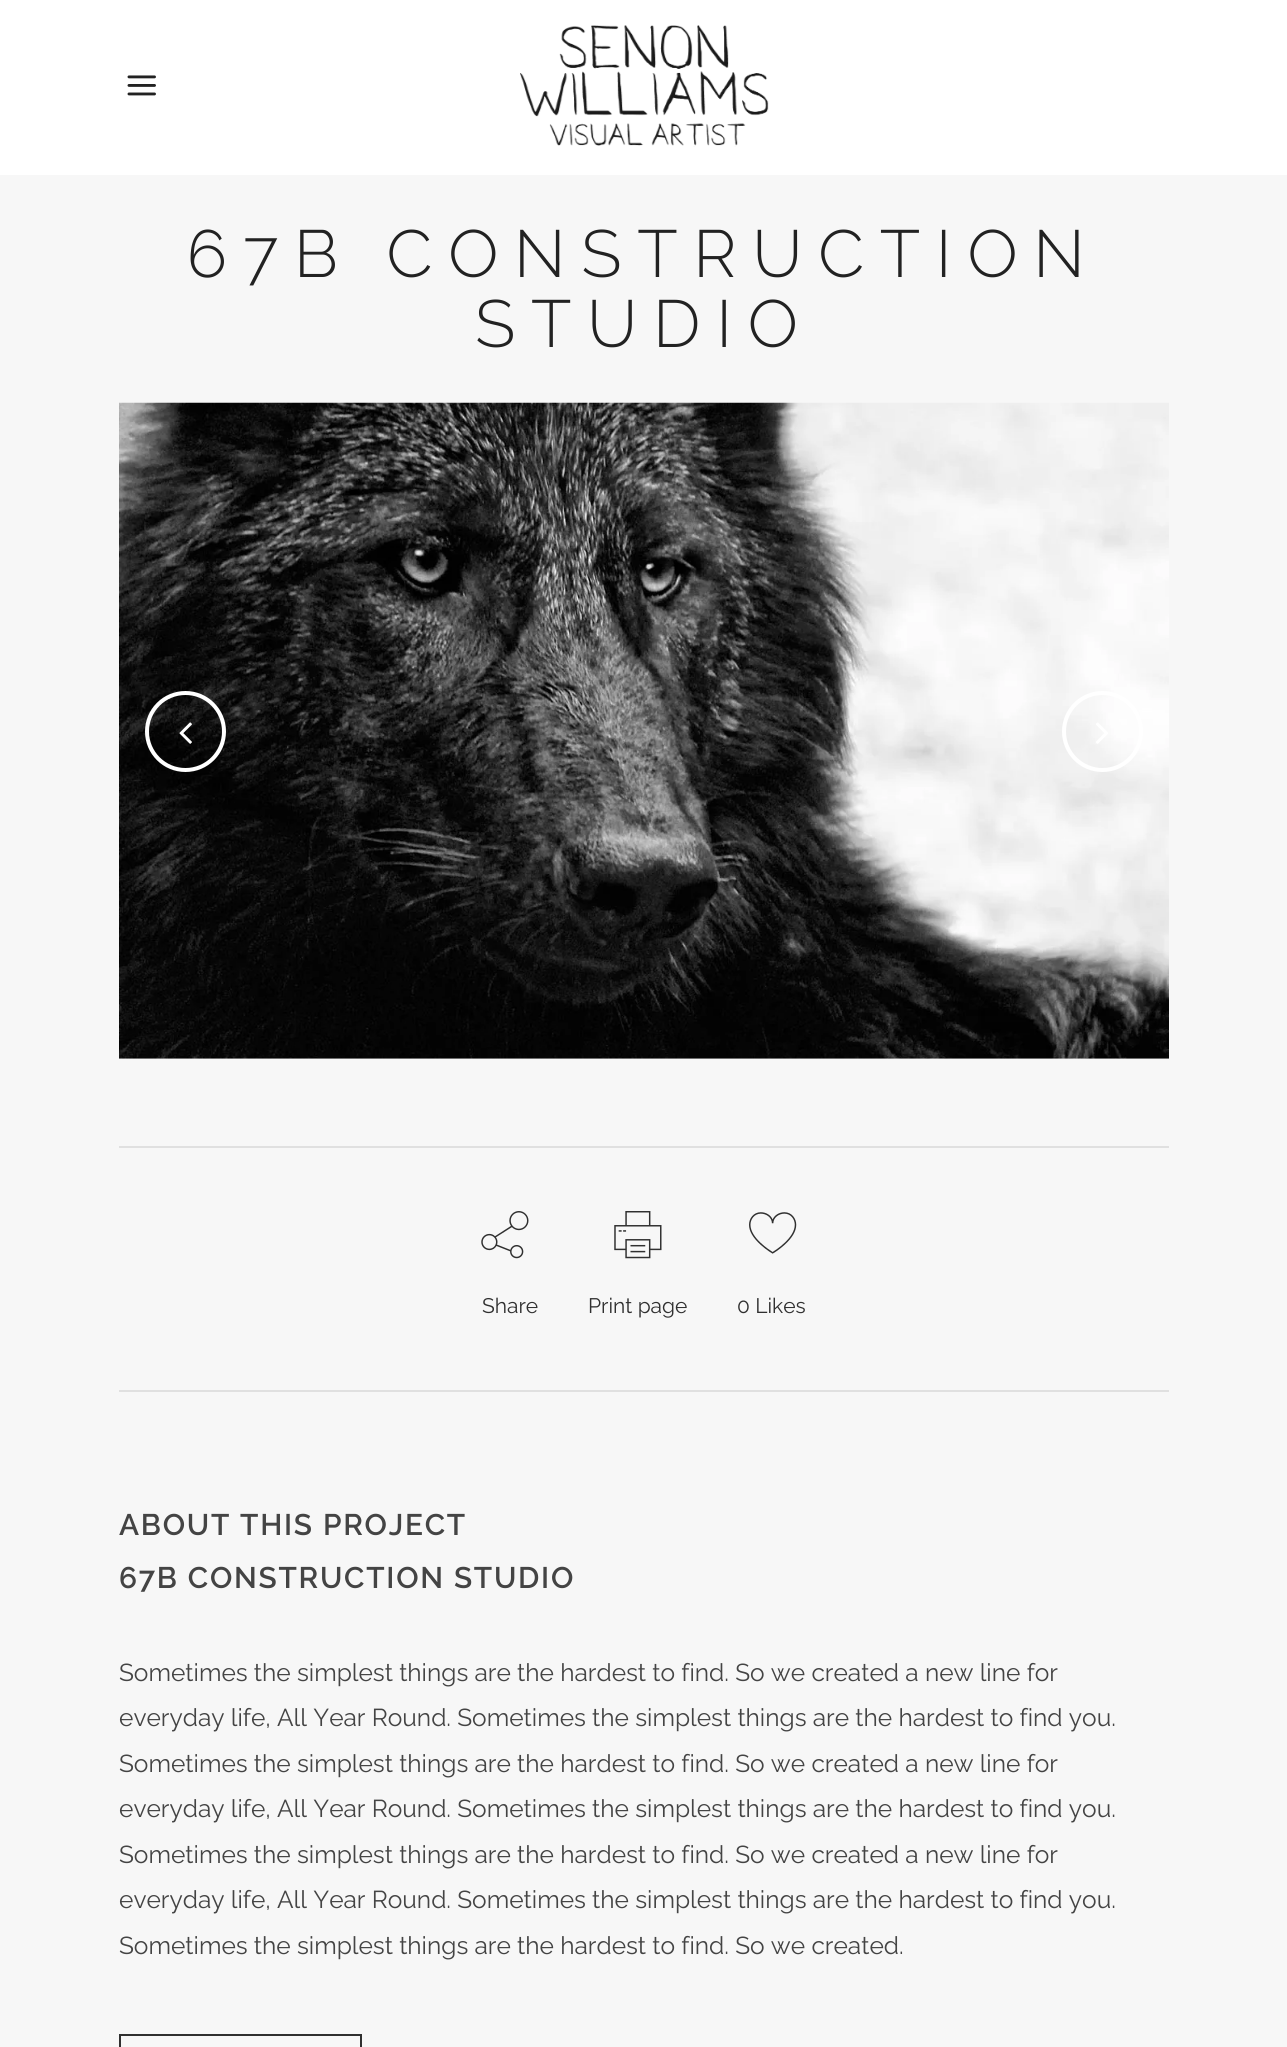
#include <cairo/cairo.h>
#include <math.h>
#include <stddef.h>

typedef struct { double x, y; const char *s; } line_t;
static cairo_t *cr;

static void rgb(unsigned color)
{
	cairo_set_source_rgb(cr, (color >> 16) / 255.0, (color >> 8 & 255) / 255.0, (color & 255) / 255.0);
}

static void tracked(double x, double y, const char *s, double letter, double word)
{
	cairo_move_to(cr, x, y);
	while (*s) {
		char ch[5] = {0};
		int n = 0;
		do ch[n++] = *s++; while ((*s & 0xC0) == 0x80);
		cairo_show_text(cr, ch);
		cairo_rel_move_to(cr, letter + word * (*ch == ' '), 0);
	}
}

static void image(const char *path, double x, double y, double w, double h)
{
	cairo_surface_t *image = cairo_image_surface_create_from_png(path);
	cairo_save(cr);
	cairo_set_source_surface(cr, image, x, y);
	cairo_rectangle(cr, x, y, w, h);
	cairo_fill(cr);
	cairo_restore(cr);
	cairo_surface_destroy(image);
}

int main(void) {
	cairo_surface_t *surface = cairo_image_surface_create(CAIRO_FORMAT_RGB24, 1287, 2047);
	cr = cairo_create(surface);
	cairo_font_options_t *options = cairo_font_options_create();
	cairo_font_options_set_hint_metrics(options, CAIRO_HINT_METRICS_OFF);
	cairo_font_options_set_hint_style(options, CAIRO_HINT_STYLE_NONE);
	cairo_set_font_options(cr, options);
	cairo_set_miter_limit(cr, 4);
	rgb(0xf7f7f7);
	cairo_paint(cr);
	rgb(0xffffff);
	cairo_rectangle(cr, 0, 0, 1287, 175);
	cairo_fill(cr);
	image("img/1.png", 127, 75, 29, 21);
	image("img/2.png", 520, 25, 249, 122);
	image("img/3.png", 119, 402, 1050, 657);
	cairo_arc(cr, 185.5, 731.5, 38.5, 0, 2 * M_PI);
	cairo_set_line_width(cr, 4);
	cairo_stroke(cr);
	image("img/4.png", 179, 722, 13, 22);
	cairo_arc(cr, 1102.5, 731.5, 38.5, 0, 2 * M_PI);
	cairo_stroke(cr);
	image("img/5.png", 1096, 722, 12, 22);
	rgb(0xe0e0e0);
	cairo_rectangle(cr, 119, 1146, 1050, 2);
	cairo_fill(cr);
	cairo_rectangle(cr, 119, 1390, 1050, 2);
	cairo_fill(cr);
	image("img/6.png", 481, 1211, 48, 48);
	image("img/7.png", 614, 1211, 48, 48);
	image("img/8.png", 749, 1212, 48, 42);
	cairo_rectangle(cr, 120, 2035, 241, 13);
	rgb(0x303030);
	cairo_set_line_width(cr, 2);
	cairo_stroke(cr);
	cairo_select_font_face(cr, "Raleway Light", CAIRO_FONT_SLANT_NORMAL, CAIRO_FONT_WEIGHT_NORMAL);
	cairo_set_font_size(cr, 66.5);
	rgb(0x222222);
	tracked(187, 277, "67B CONSTRUCTION", 15.75, 0);
	tracked(475, 347, "STUDIO", 15.75, 0);
	cairo_select_font_face(cr, "Raleway", CAIRO_FONT_SLANT_NORMAL, CAIRO_FONT_WEIGHT_NORMAL);
	cairo_set_font_size(cr, 21);
	rgb(0x303030);
	{
		static const line_t items[] = {
			{482, 1313, "Share"},
			{588, 1313, "Print page"},
			{737, 1313, "0 Likes"},
		};
		for (size_t i = 0; i < sizeof items / sizeof *items; i++) {
			cairo_move_to(cr, items[i].x, items[i].y);
			cairo_show_text(cr, items[i].s);
		}
	}
	cairo_select_font_face(cr, "Raleway SemiBold", CAIRO_FONT_SLANT_NORMAL, CAIRO_FONT_WEIGHT_NORMAL);
	cairo_set_font_size(cr, 29.75);
	rgb(0x444444);
	tracked(119, 1535, "ABOUT THIS PROJECT", 1.75, 0);
	tracked(119, 1588, "67B CONSTRUCTION STUDIO", 1.75, 0);
	cairo_select_font_face(cr, "Raleway", CAIRO_FONT_SLANT_NORMAL, CAIRO_FONT_WEIGHT_NORMAL);
	cairo_set_font_size(cr, 24.5);
	{
		static const line_t items[] = {
			{119, 1681, "Sometimes the simplest things are the hardest to find. So we created a new line for"},
			{119, 1726, "everyday life, All Year Round. Sometimes the simplest things are the hardest to find you."},
			{119, 1772, "Sometimes the simplest things are the hardest to find. So we created a new line for"},
			{119, 1817, "everyday life, All Year Round. Sometimes the simplest things are the hardest to find you."},
			{119, 1863, "Sometimes the simplest things are the hardest to find. So we created a new line for"},
			{119, 1908, "everyday life, All Year Round. Sometimes the simplest things are the hardest to find you."},
			{119, 1954, "Sometimes the simplest things are the hardest to find. So we created."},
		};
		for (size_t i = 0; i < sizeof items / sizeof *items; i++) {
			cairo_move_to(cr, items[i].x, items[i].y);
			cairo_show_text(cr, items[i].s);
		}
	}
	cairo_surface_write_to_png(surface, "page.png");
	cairo_font_options_destroy(options);
	cairo_destroy(cr);
	cairo_surface_destroy(surface);
	return 0;
}
